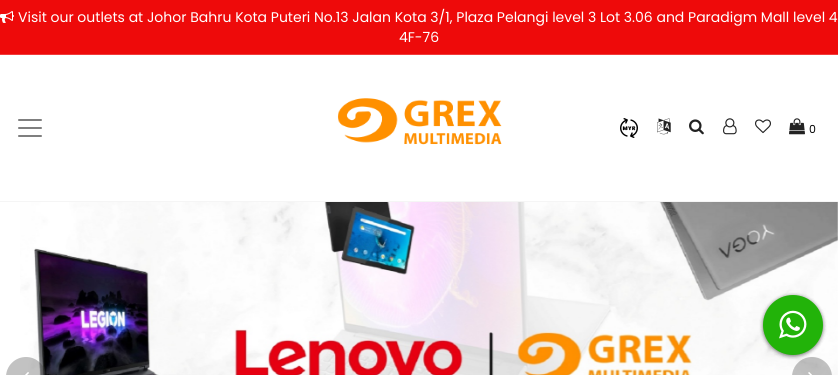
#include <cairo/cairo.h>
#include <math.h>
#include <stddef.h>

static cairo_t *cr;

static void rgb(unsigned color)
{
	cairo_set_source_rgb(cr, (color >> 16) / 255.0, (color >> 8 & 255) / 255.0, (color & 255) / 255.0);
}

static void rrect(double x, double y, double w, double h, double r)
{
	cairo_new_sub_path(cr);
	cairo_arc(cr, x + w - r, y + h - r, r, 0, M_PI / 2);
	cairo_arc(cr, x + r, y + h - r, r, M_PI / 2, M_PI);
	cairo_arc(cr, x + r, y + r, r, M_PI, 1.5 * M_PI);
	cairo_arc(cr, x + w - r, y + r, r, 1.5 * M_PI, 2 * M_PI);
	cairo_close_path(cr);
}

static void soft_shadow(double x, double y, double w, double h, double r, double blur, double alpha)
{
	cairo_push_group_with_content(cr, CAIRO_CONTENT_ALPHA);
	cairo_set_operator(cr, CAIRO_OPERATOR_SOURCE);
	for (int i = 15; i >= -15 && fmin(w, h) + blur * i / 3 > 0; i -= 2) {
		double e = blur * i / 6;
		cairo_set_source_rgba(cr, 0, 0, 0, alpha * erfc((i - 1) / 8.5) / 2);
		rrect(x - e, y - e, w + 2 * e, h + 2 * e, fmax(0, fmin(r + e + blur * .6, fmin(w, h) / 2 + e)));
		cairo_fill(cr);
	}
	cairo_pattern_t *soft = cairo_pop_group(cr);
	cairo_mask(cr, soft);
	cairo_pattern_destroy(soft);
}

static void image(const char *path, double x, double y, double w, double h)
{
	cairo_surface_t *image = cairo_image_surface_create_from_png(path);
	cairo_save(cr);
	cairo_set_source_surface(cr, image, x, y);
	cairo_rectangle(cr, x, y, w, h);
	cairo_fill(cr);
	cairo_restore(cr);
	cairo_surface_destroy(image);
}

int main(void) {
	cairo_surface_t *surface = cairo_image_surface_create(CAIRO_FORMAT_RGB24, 838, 375);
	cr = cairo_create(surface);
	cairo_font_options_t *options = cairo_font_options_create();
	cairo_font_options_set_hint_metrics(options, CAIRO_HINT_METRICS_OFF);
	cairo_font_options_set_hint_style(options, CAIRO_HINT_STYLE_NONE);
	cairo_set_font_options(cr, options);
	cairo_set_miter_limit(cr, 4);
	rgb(0xffffff);
	cairo_paint(cr);
	rgb(0xee0a0a);
	cairo_rectangle(cr, 0, 0, 838, 54);
	cairo_fill(cr);
	rgb(0xf13b3b);
	cairo_rectangle(cr, 0, 54, 838, 1);
	cairo_fill(cr);
	image("img/1.png", 0, 11, 14, 12);
	rgb(0xf5f5f5);
	cairo_rectangle(cr, 0, 201, 838, 1);
	cairo_fill(cr);
	image("img/2.png", 18, 119, 24, 18);
	image("img/3.png", 337, 98, 165, 47);
	image("img/4.png", 620, 118, 18, 20);
	image("img/5.png", 657, 118, 14, 17);
	image("img/6.png", 689, 119, 15, 16);
	image("img/7.png", 723, 118, 14, 17);
	image("img/8.png", 755, 119, 16, 15);
	image("img/9.png", 789, 118, 16, 17);
	image("img/10.png", 20, 202, 818, 173);
	cairo_set_source_rgba(cr, 0.2, 0.2, 0.2, 0.3);
	rrect(6, 357, 40, 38, 20);
	cairo_fill(cr);
	image("img/11.png", 25, 372, 4, 3);
	rrect(792, 357, 40, 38, 20);
	cairo_fill(cr);
	image("img/12.png", 808, 372, 4, 3);
	rgb(0x000000);
	soft_shadow(763, 296, 60, 60, 30, 2, 0.3);
	soft_shadow(763, 296, 60, 60, 30, 2, 0.3);
	rgb(0x22b309);
	cairo_arc(cr, 793, 325, 30, 0, 2 * M_PI);
	cairo_fill(cr);
	image("img/13.png", 779, 310, 28, 29);
	cairo_select_font_face(cr, "Poppins", CAIRO_FONT_SLANT_NORMAL, CAIRO_FONT_WEIGHT_NORMAL);
	cairo_set_font_size(cr, 14);
	rgb(0xffffff);
	cairo_move_to(cr, 18, 22);
	cairo_show_text(cr, "Visit our outlets at Johor Bahru Kota Puteri No.13 Jalan Kota 3/1, Plaza Pelangi level 3 Lot 3.06 and Paradigm Mall level 4");
	cairo_move_to(cr, 399, 42);
	cairo_show_text(cr, "4F-76");
	cairo_set_font_size(cr, 11);
	rgb(0x000000);
	cairo_move_to(cr, 809, 133);
	cairo_show_text(cr, "0");
	cairo_surface_write_to_png(surface, "page.png");
	cairo_font_options_destroy(options);
	cairo_destroy(cr);
	cairo_surface_destroy(surface);
	return 0;
}
